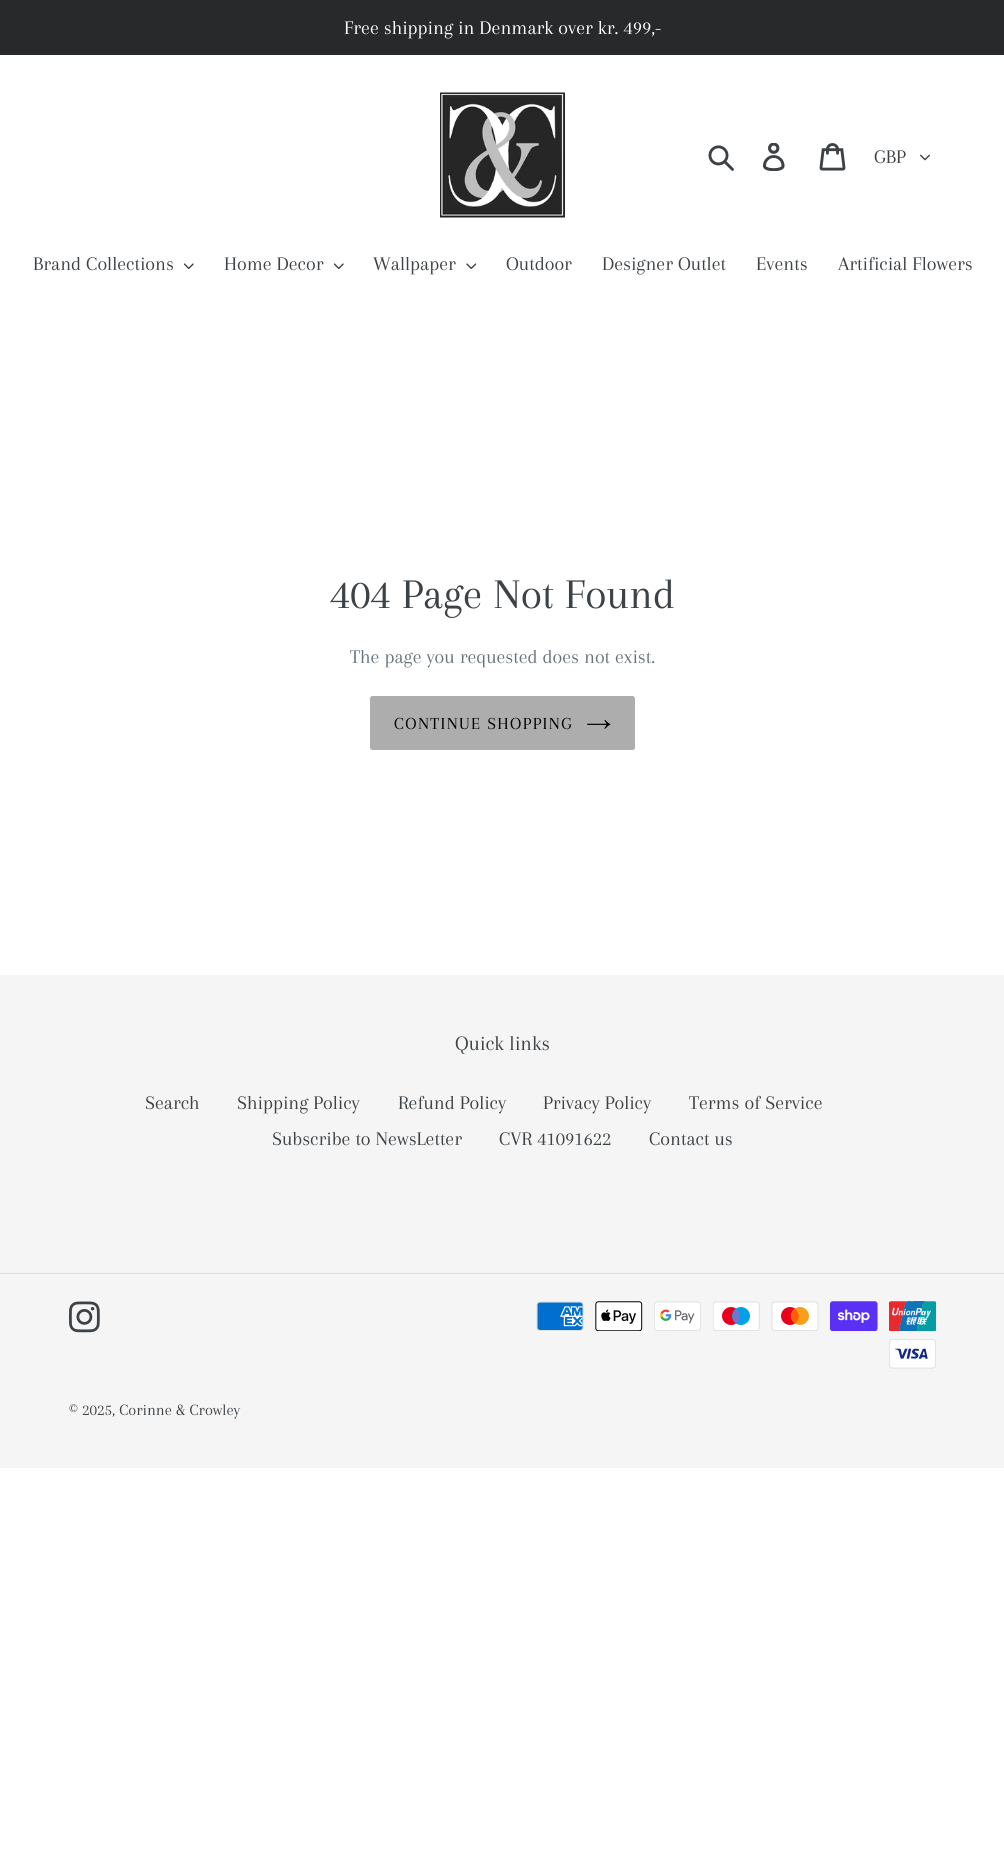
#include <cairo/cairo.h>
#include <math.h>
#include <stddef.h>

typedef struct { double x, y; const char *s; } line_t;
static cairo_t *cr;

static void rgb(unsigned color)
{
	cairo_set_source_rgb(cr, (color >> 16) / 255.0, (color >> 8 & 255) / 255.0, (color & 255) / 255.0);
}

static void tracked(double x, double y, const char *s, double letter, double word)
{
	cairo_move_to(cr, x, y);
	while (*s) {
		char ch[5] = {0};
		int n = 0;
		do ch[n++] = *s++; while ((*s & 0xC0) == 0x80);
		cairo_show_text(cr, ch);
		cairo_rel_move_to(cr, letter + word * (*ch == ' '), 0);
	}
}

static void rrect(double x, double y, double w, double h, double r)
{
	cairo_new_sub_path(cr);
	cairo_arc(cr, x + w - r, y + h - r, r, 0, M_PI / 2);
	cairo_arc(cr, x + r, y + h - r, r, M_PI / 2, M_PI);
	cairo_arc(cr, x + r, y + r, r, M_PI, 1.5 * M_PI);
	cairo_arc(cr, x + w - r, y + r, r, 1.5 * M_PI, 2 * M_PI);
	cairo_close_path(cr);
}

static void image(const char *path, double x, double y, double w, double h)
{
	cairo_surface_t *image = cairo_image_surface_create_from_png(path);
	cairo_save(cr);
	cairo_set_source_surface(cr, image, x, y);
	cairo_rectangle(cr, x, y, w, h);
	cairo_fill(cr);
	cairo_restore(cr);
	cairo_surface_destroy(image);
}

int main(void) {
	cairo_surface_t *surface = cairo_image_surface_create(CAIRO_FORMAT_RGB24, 1004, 1849);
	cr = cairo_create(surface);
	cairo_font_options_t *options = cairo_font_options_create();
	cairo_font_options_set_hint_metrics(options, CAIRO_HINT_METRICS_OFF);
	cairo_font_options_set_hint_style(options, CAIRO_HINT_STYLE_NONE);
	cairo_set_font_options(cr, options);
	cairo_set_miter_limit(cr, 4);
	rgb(0xffffff);
	cairo_paint(cr);
	rgb(0x27292a);
	cairo_rectangle(cr, 0, 0, 1004, 55);
	cairo_fill(cr);
	image("img/1.png", 440, 92, 125, 126);
	image("img/2.png", 708, 145, 26, 26);
	image("img/3.png", 762, 143, 23, 28);
	image("img/4.png", 819, 143, 27, 28);
	image("img/5.png", 920, 154, 10, 7);
	image("img/6.png", 184, 263, 10, 7);
	image("img/6.png", 334, 263, 10, 7);
	image("img/7.png", 466, 263, 10, 7);
	rgb(0xaeadad);
	rrect(370, 696, 265, 54, 2.5);
	cairo_fill(cr);
	image("img/8.png", 587, 719, 24, 10);
	rgb(0xf5f5f5);
	cairo_rectangle(cr, 0, 975, 1004, 493);
	cairo_fill(cr);
	rgb(0xdcdcdc);
	cairo_rectangle(cr, 0, 1273, 1004, 1);
	cairo_fill(cr);
	image("img/9.png", 69, 1301, 31, 32);
	image("img/10.png", 536, 1301, 48, 30);
	image("img/11.png", 595, 1301, 48, 30);
	image("img/12.png", 654, 1301, 47, 30);
	image("img/13.png", 713, 1301, 47, 30);
	image("img/14.png", 771, 1301, 48, 30);
	image("img/15.png", 830, 1301, 48, 30);
	image("img/16.png", 889, 1301, 47, 30);
	image("img/17.png", 889, 1339, 47, 30);
	cairo_select_font_face(cr, "Arapey", CAIRO_FONT_SLANT_NORMAL, CAIRO_FONT_WEIGHT_NORMAL);
	cairo_set_font_size(cr, 20);
	rgb(0xffffff);
	cairo_move_to(cr, 344, 34);
	cairo_show_text(cr, "Free shipping in Denmark over kr. 499,-");
	rgb(0x3d4246);
	{
		static const line_t items[] = {
			{874, 163, "GBP"},
			{33, 270, "Brand Collections"},
			{224, 270, "Home Decor"},
			{373, 270, "Wallpaper"},
			{506, 270, "Outdoor"},
			{602, 270, "Designer Outlet"},
			{756, 270, "Events"},
			{838, 270, "Artificial Flowers"},
		};
		for (size_t i = 0; i < sizeof items / sizeof *items; i++) {
			cairo_move_to(cr, items[i].x, items[i].y);
			cairo_show_text(cr, items[i].s);
		}
	}
	cairo_set_font_size(cr, 43.75);
	cairo_move_to(cr, 330, 608);
	cairo_show_text(cr, "404 Page Not Found");
	cairo_set_font_size(cr, 20);
	rgb(0x69727b);
	cairo_move_to(cr, 350, 663);
	cairo_show_text(cr, "The page you requested does not exist.");
	cairo_set_font_size(cr, 17.5);
	rgb(0x000000);
	tracked(394, 729, "CONTINUE SHOPPING", 1.4, 0);
	cairo_set_font_size(cr, 21.25);
	rgb(0x3d4246);
	cairo_move_to(cr, 455, 1050);
	cairo_show_text(cr, "Quick links");
	cairo_set_font_size(cr, 20);
	{
		static const line_t items[] = {
			{145, 1109, "Search"},
			{237, 1109, "Shipping Policy"},
			{398, 1109, "Refund Policy"},
			{543, 1109, "Privacy Policy"},
			{689, 1109, "Terms of Service"},
			{272, 1145, "Subscribe to NewsLetter"},
			{499, 1145, "CVR 41091622"},
			{649, 1145, "Contact us"},
		};
		for (size_t i = 0; i < sizeof items / sizeof *items; i++) {
			cairo_move_to(cr, items[i].x, items[i].y);
			cairo_show_text(cr, items[i].s);
		}
	}
	cairo_set_font_size(cr, 16.25);
	cairo_move_to(cr, 69, 1415);
	cairo_show_text(cr, "© 2025, Corinne & Crowley");
	cairo_surface_write_to_png(surface, "page.png");
	cairo_font_options_destroy(options);
	cairo_destroy(cr);
	cairo_surface_destroy(surface);
	return 0;
}
